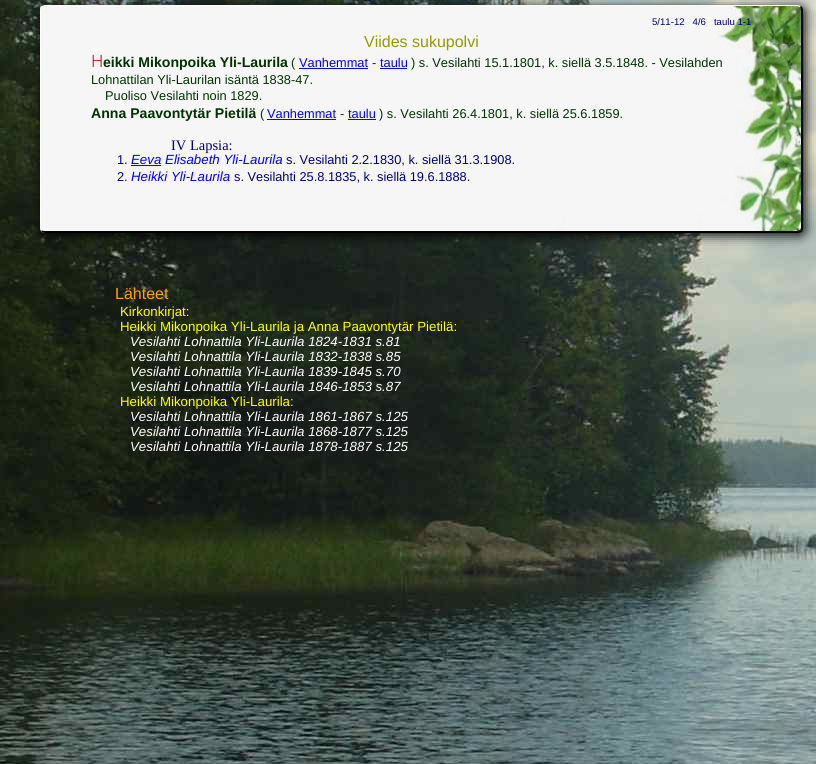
#include <cairo/cairo.h>
#include <math.h>
#include <stddef.h>

typedef struct { double x, y; const char *s; } line_t;
typedef struct { double x, y, w, h; unsigned color; } box_t;
static cairo_t *cr;

static void rgb(unsigned color)
{
	cairo_set_source_rgb(cr, (color >> 16) / 255.0, (color >> 8 & 255) / 255.0, (color & 255) / 255.0);
}

static void rrect(double x, double y, double w, double h, double r)
{
	cairo_new_sub_path(cr);
	cairo_arc(cr, x + w - r, y + h - r, r, 0, M_PI / 2);
	cairo_arc(cr, x + r, y + h - r, r, M_PI / 2, M_PI);
	cairo_arc(cr, x + r, y + r, r, M_PI, 1.5 * M_PI);
	cairo_arc(cr, x + w - r, y + r, r, 1.5 * M_PI, 2 * M_PI);
	cairo_close_path(cr);
}

static void soft_shadow(double x, double y, double w, double h, double r, double blur, double alpha)
{
	cairo_push_group_with_content(cr, CAIRO_CONTENT_ALPHA);
	cairo_set_operator(cr, CAIRO_OPERATOR_SOURCE);
	for (int i = 15; i >= -15 && fmin(w, h) + blur * i / 3 > 0; i -= 2) {
		double e = blur * i / 6;
		cairo_set_source_rgba(cr, 0, 0, 0, alpha * erfc((i - 1) / 8.5) / 2);
		rrect(x - e, y - e, w + 2 * e, h + 2 * e, fmax(0, fmin(r + e + blur * .6, fmin(w, h) / 2 + e)));
		cairo_fill(cr);
	}
	cairo_pattern_t *soft = cairo_pop_group(cr);
	cairo_mask(cr, soft);
	cairo_pattern_destroy(soft);
}

static void image(const char *path, double x, double y, double w, double h)
{
	cairo_surface_t *image = cairo_image_surface_create_from_png(path);
	cairo_save(cr);
	cairo_set_source_surface(cr, image, x, y);
	cairo_rectangle(cr, x, y, w, h);
	cairo_fill(cr);
	cairo_restore(cr);
	cairo_surface_destroy(image);
}

int main(void) {
	cairo_surface_t *surface = cairo_image_surface_create(CAIRO_FORMAT_RGB24, 816, 764);
	cr = cairo_create(surface);
	cairo_font_options_t *options = cairo_font_options_create();
	cairo_font_options_set_hint_metrics(options, CAIRO_HINT_METRICS_OFF);
	cairo_font_options_set_hint_style(options, CAIRO_HINT_STYLE_NONE);
	cairo_set_font_options(cr, options);
	cairo_set_miter_limit(cr, 4);
	rgb(0xffffff);
	cairo_paint(cr);
	image("img/1.png", 0, 0, 816, 764);
	rgb(0x000000);
	soft_shadow(42, 7, 763, 228, 5, 6, 1);
	image("img/2.png", 41, 6, 760, 227);
	rgb(0xfffff7);
	cairo_new_path(cr);
	cairo_move_to(cr, 45, 5);
	cairo_curve_to(cr, 44, 5, 42, 6, 41, 6);
	cairo_line_to(cr, 42, 7);
	cairo_line_to(cr, 45, 6);
	cairo_line_to(cr, 798, 6);
	cairo_line_to(cr, 800, 7);
	cairo_line_to(cr, 801, 6);
	cairo_line_to(cr, 798, 5);
	cairo_close_path(cr);
	cairo_fill(cr);
	rgb(0x000000);
	cairo_new_path(cr);
	cairo_move_to(cr, 803, 228);
	cairo_line_to(cr, 803, 10);
	cairo_curve_to(cr, 803, 8, 802, 7, 801, 6);
	cairo_line_to(cr, 800, 7);
	cairo_curve_to(cr, 801, 7, 801, 9, 801, 10);
	cairo_line_to(cr, 801, 228);
	cairo_line_to(cr, 800, 230);
	cairo_line_to(cr, 802, 232);
	cairo_curve_to(cr, 802, 231, 803, 230, 803, 228);
	cairo_close_path(cr);
	cairo_fill(cr);
	cairo_new_path(cr);
	cairo_move_to(cr, 45, 233);
	cairo_line_to(cr, 798, 233);
	cairo_curve_to(cr, 800, 233, 801, 232, 802, 232);
	cairo_line_to(cr, 800, 230);
	cairo_line_to(cr, 798, 231);
	cairo_line_to(cr, 45, 231);
	cairo_curve_to(cr, 44, 231, 42, 231, 42, 230);
	cairo_line_to(cr, 41, 231);
	cairo_curve_to(cr, 42, 232, 43, 233, 45, 233);
	cairo_close_path(cr);
	cairo_fill(cr);
	rgb(0xfffff7);
	cairo_new_path(cr);
	cairo_move_to(cr, 40, 10);
	cairo_line_to(cr, 40, 228);
	cairo_curve_to(cr, 40, 229, 40, 230, 41, 231);
	cairo_line_to(cr, 42, 230);
	cairo_line_to(cr, 41, 228);
	cairo_line_to(cr, 41, 10);
	cairo_line_to(cr, 42, 7);
	cairo_line_to(cr, 41, 6);
	cairo_curve_to(cr, 40, 7, 40, 8, 40, 10);
	cairo_close_path(cr);
	cairo_fill(cr);
	{
		static const box_t items[] = {
			{299, 68, 69, 1, 0x0000ff},
			{380, 68, 27, 1, 0x0000ff},
			{267, 119, 69, 1, 0x0000ff},
			{348, 119, 28, 1, 0x0000ff},
			{131, 165, 30, 1, 0x0000ff},
		};
		for (size_t i = 0; i < sizeof items / sizeof *items; i++) {
			rgb(items[i].color);
			cairo_rectangle(cr, items[i].x, items[i].y, items[i].w, items[i].h);
			cairo_fill(cr);
		}
	}
	cairo_select_font_face(cr, "Liberation Sans", CAIRO_FONT_SLANT_NORMAL, CAIRO_FONT_WEIGHT_NORMAL);
	cairo_set_font_size(cr, 9.6);
	rgb(0x000080);
	cairo_move_to(cr, 652, 25);
	cairo_show_text(cr, "5/11-12   4/6   taulu 1-1");
	cairo_set_font_size(cr, 16);
	rgb(0x999900);
	cairo_move_to(cr, 364, 47);
	cairo_show_text(cr, "Viides sukupolvi");
	cairo_select_font_face(cr, "Noto Sans Light", CAIRO_FONT_SLANT_NORMAL, CAIRO_FONT_WEIGHT_NORMAL);
	cairo_set_font_size(cr, 17);
	rgb(0xcc0000);
	cairo_move_to(cr, 91, 67);
	cairo_show_text(cr, "H");
	cairo_select_font_face(cr, "Liberation Sans", CAIRO_FONT_SLANT_NORMAL, CAIRO_FONT_WEIGHT_BOLD);
	cairo_set_font_size(cr, 14.1);
	rgb(0x003300);
	cairo_move_to(cr, 103, 67);
	cairo_show_text(cr, "eikki Mikonpoika Yli-Laurila");
	cairo_select_font_face(cr, "Liberation Sans", CAIRO_FONT_SLANT_NORMAL, CAIRO_FONT_WEIGHT_NORMAL);
	cairo_set_font_size(cr, 12.8);
	cairo_move_to(cr, 291, 67);
	cairo_show_text(cr, "(");
	rgb(0x0000ff);
	cairo_move_to(cr, 299, 67);
	cairo_show_text(cr, "Vanhemmat");
	rgb(0x003300);
	cairo_move_to(cr, 372, 67);
	cairo_show_text(cr, "-");
	rgb(0x0000ff);
	cairo_move_to(cr, 380, 67);
	cairo_show_text(cr, "taulu");
	rgb(0x003300);
	{
		static const line_t items[] = {
			{411, 67, ") s. Vesilahti 15.1.1801, k. siellä 3.5.1848. - Vesilahden"},
			{91, 84, "Lohnattilan Yli-Laurilan isäntä 1838-47."},
			{105, 100, "Puoliso Vesilahti noin 1829."},
		};
		for (size_t i = 0; i < sizeof items / sizeof *items; i++) {
			cairo_move_to(cr, items[i].x, items[i].y);
			cairo_show_text(cr, items[i].s);
		}
	}
	cairo_select_font_face(cr, "Liberation Sans", CAIRO_FONT_SLANT_NORMAL, CAIRO_FONT_WEIGHT_BOLD);
	cairo_set_font_size(cr, 14.1);
	cairo_move_to(cr, 91, 118);
	cairo_show_text(cr, "Anna Paavontytär Pietilä");
	cairo_select_font_face(cr, "Liberation Sans", CAIRO_FONT_SLANT_NORMAL, CAIRO_FONT_WEIGHT_NORMAL);
	cairo_set_font_size(cr, 12.8);
	cairo_move_to(cr, 260, 118);
	cairo_show_text(cr, "(");
	rgb(0x0000ff);
	cairo_move_to(cr, 267, 118);
	cairo_show_text(cr, "Vanhemmat");
	rgb(0x003300);
	cairo_move_to(cr, 340, 118);
	cairo_show_text(cr, "-");
	rgb(0x0000ff);
	cairo_move_to(cr, 348, 118);
	cairo_show_text(cr, "taulu");
	rgb(0x003300);
	cairo_move_to(cr, 379, 118);
	cairo_show_text(cr, ") s. Vesilahti 26.4.1801, k. siellä 25.6.1859.");
	cairo_select_font_face(cr, "Liberation Serif", CAIRO_FONT_SLANT_NORMAL, CAIRO_FONT_WEIGHT_NORMAL);
	cairo_set_font_size(cr, 14.5);
	rgb(0x000080);
	cairo_move_to(cr, 171, 150);
	cairo_show_text(cr, "IV Lapsia:");
	cairo_select_font_face(cr, "Liberation Sans", CAIRO_FONT_SLANT_NORMAL, CAIRO_FONT_WEIGHT_NORMAL);
	cairo_set_font_size(cr, 12.8);
	cairo_move_to(cr, 117, 164);
	cairo_show_text(cr, "1.");
	cairo_select_font_face(cr, "Liberation Sans", CAIRO_FONT_SLANT_ITALIC, CAIRO_FONT_WEIGHT_NORMAL);
	cairo_set_font_size(cr, 13.3);
	rgb(0x0000ff);
	cairo_move_to(cr, 131, 164);
	cairo_show_text(cr, "Eeva Elisabeth Yli-Laurila");
	cairo_select_font_face(cr, "Liberation Sans", CAIRO_FONT_SLANT_NORMAL, CAIRO_FONT_WEIGHT_NORMAL);
	cairo_set_font_size(cr, 12.8);
	rgb(0x000080);
	cairo_move_to(cr, 286, 164);
	cairo_show_text(cr, "s. Vesilahti 2.2.1830, k. siellä 31.3.1908.");
	cairo_move_to(cr, 117, 181);
	cairo_show_text(cr, "2.");
	cairo_select_font_face(cr, "Liberation Sans", CAIRO_FONT_SLANT_ITALIC, CAIRO_FONT_WEIGHT_NORMAL);
	cairo_set_font_size(cr, 13.3);
	rgb(0x0000ff);
	cairo_move_to(cr, 131, 181);
	cairo_show_text(cr, "Heikki Yli-Laurila");
	cairo_select_font_face(cr, "Liberation Sans", CAIRO_FONT_SLANT_NORMAL, CAIRO_FONT_WEIGHT_NORMAL);
	cairo_set_font_size(cr, 12.8);
	rgb(0x000080);
	cairo_move_to(cr, 234, 181);
	cairo_show_text(cr, "s. Vesilahti 25.8.1835, k. siellä 19.6.1888.");
	cairo_set_font_size(cr, 16);
	rgb(0xffa500);
	cairo_move_to(cr, 115, 299);
	cairo_show_text(cr, "Lähteet");
	cairo_set_font_size(cr, 13.3);
	rgb(0xffff00);
	cairo_move_to(cr, 120, 316);
	cairo_show_text(cr, "Kirkonkirjat:");
	cairo_move_to(cr, 120, 331);
	cairo_show_text(cr, "Heikki Mikonpoika Yli-Laurila ja Anna Paavontytär Pietilä:");
	cairo_select_font_face(cr, "Liberation Sans", CAIRO_FONT_SLANT_ITALIC, CAIRO_FONT_WEIGHT_NORMAL);
	rgb(0xffffff);
	{
		static const line_t items[] = {
			{130, 346, "Vesilahti Lohnattila Yli-Laurila 1824-1831 s.81"},
			{130, 361, "Vesilahti Lohnattila Yli-Laurila 1832-1838 s.85"},
			{130, 376, "Vesilahti Lohnattila Yli-Laurila 1839-1845 s.70"},
			{130, 391, "Vesilahti Lohnattila Yli-Laurila 1846-1853 s.87"},
		};
		for (size_t i = 0; i < sizeof items / sizeof *items; i++) {
			cairo_move_to(cr, items[i].x, items[i].y);
			cairo_show_text(cr, items[i].s);
		}
	}
	cairo_select_font_face(cr, "Liberation Sans", CAIRO_FONT_SLANT_NORMAL, CAIRO_FONT_WEIGHT_NORMAL);
	rgb(0xffff00);
	cairo_move_to(cr, 120, 406);
	cairo_show_text(cr, "Heikki Mikonpoika Yli-Laurila:");
	cairo_select_font_face(cr, "Liberation Sans", CAIRO_FONT_SLANT_ITALIC, CAIRO_FONT_WEIGHT_NORMAL);
	rgb(0xffffff);
	{
		static const line_t items[] = {
			{130, 421, "Vesilahti Lohnattila Yli-Laurila 1861-1867 s.125"},
			{130, 436, "Vesilahti Lohnattila Yli-Laurila 1868-1877 s.125"},
			{130, 451, "Vesilahti Lohnattila Yli-Laurila 1878-1887 s.125"},
		};
		for (size_t i = 0; i < sizeof items / sizeof *items; i++) {
			cairo_move_to(cr, items[i].x, items[i].y);
			cairo_show_text(cr, items[i].s);
		}
	}
	cairo_surface_write_to_png(surface, "page.png");
	cairo_font_options_destroy(options);
	cairo_destroy(cr);
	cairo_surface_destroy(surface);
	return 0;
}
